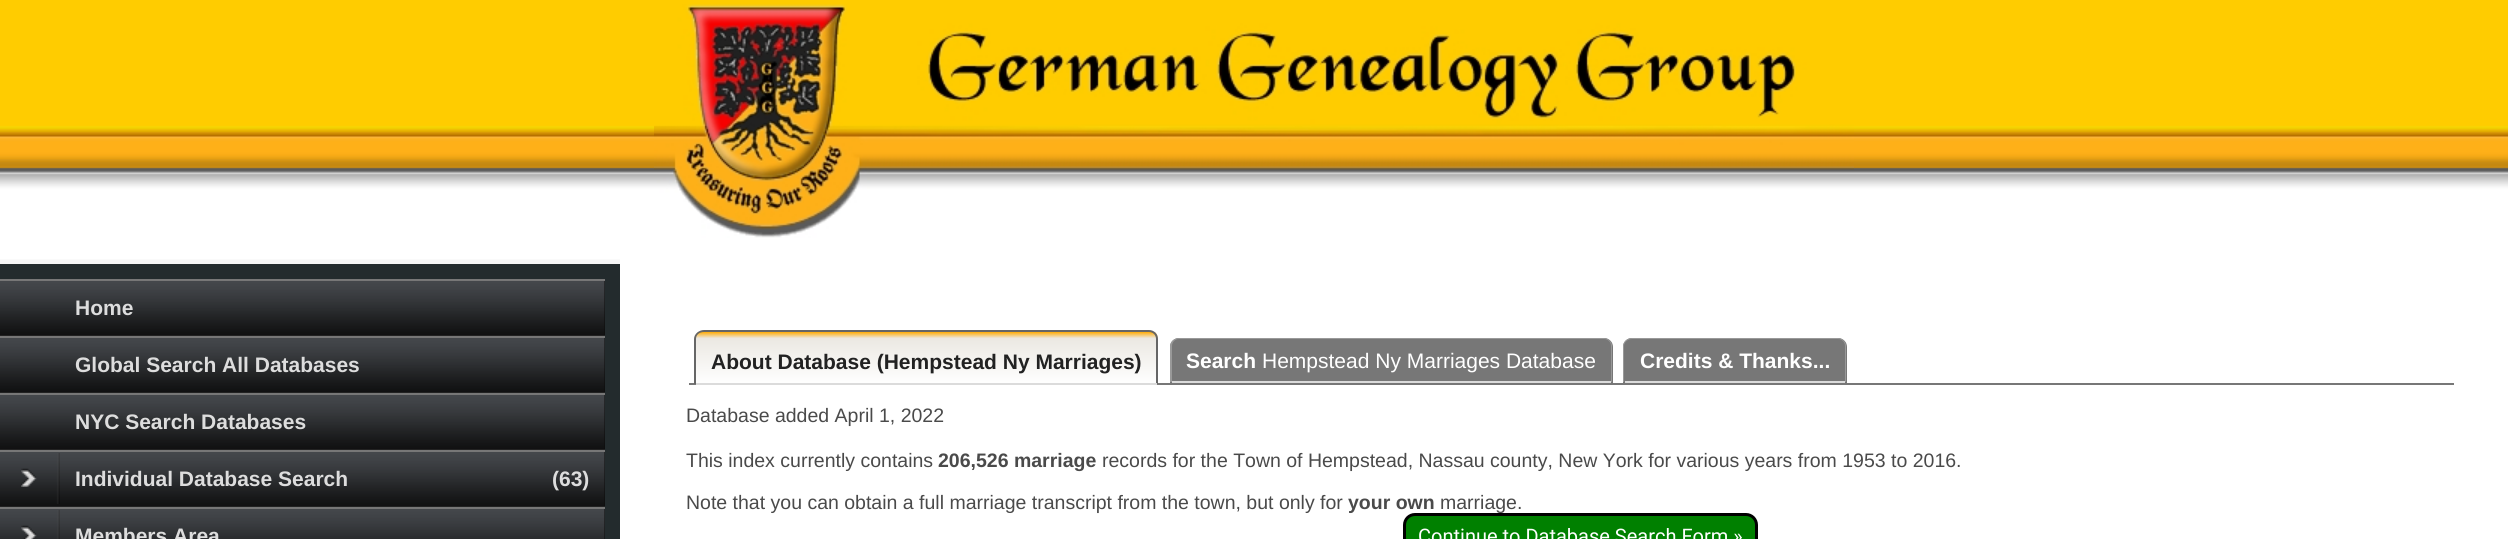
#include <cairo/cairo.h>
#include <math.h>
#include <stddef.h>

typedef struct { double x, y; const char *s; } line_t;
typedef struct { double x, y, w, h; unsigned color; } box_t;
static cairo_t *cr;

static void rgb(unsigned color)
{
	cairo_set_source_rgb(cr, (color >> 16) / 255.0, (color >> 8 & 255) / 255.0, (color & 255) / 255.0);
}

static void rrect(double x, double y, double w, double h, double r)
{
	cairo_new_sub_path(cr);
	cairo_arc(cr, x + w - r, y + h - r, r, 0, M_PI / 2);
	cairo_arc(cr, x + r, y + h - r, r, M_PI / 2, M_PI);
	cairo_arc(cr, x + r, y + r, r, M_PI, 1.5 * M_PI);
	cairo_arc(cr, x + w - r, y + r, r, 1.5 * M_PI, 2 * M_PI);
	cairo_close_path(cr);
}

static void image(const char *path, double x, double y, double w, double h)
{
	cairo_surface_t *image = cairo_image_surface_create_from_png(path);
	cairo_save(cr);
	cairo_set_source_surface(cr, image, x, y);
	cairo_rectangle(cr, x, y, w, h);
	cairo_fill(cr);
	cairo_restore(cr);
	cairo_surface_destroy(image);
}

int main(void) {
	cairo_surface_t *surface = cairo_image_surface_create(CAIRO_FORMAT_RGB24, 2508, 539);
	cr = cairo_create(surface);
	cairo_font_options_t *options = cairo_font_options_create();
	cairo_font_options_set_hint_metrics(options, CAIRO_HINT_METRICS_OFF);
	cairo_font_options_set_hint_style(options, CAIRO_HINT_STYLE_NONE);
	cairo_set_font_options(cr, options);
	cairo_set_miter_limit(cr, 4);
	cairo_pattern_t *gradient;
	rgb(0xf5f5f5);
	cairo_paint(cr);
	image("img/1.png", 0, 0, 2508, 260);
	image("img/2.png", 654, 4, 1200, 234);
	rgb(0x232b2d);
	cairo_rectangle(cr, 0, 264, 620, 275);
	cairo_fill(cr);
	rgb(0x0c0c0c);
	cairo_rectangle(cr, 604, 281, 1, 54);
	cairo_fill(cr);
	image("img/3.png", 0, 281, 605, 54);
	{
		static const box_t items[] = {
			{0, 279, 605, 2, 0x777777},
			{0, 335, 605, 1, 0x222222},
			{604, 338, 1, 54, 0x0c0c0c},
		};
		for (size_t i = 0; i < sizeof items / sizeof *items; i++) {
			rgb(items[i].color);
			cairo_rectangle(cr, items[i].x, items[i].y, items[i].w, items[i].h);
			cairo_fill(cr);
		}
	}
	image("img/3.png", 0, 338, 605, 54);
	{
		static const box_t items[] = {
			{0, 336, 605, 2, 0x777777},
			{0, 392, 605, 1, 0x222222},
			{604, 395, 1, 54, 0x0c0c0c},
		};
		for (size_t i = 0; i < sizeof items / sizeof *items; i++) {
			rgb(items[i].color);
			cairo_rectangle(cr, items[i].x, items[i].y, items[i].w, items[i].h);
			cairo_fill(cr);
		}
	}
	image("img/3.png", 0, 395, 605, 54);
	{
		static const box_t items[] = {
			{0, 393, 605, 2, 0x777777},
			{0, 449, 605, 1, 0x222222},
			{604, 452, 1, 54, 0x0c0c0c},
		};
		for (size_t i = 0; i < sizeof items / sizeof *items; i++) {
			rgb(items[i].color);
			cairo_rectangle(cr, items[i].x, items[i].y, items[i].w, items[i].h);
			cairo_fill(cr);
		}
	}
	image("img/3.png", 0, 452, 605, 54);
	rgb(0x777777);
	cairo_rectangle(cr, 0, 450, 605, 2);
	cairo_fill(cr);
	rgb(0x222222);
	cairo_rectangle(cr, 0, 506, 605, 1);
	cairo_fill(cr);
	image("img/4.png", 21, 453, 39, 51);
	rgb(0x0c0c0c);
	cairo_rectangle(cr, 604, 509, 1, 30);
	cairo_fill(cr);
	image("img/5.png", 0, 509, 605, 30);
	rgb(0x777777);
	cairo_rectangle(cr, 0, 507, 605, 2);
	cairo_fill(cr);
	image("img/6.png", 21, 510, 39, 29);
	rgb(0xffffff);
	cairo_rectangle(cr, 620, 259, 1888, 280);
	cairo_fill(cr);
	rgb(0x777777);
	cairo_rectangle(cr, 689, 383, 1765, 2);
	cairo_fill(cr);
	cairo_save(cr);
	cairo_new_path(cr);
	cairo_move_to(cr, 704, 330);
	cairo_line_to(cr, 1149, 330);
	cairo_curve_to(cr, 1154, 330, 1158, 334, 1158, 339);
	cairo_line_to(cr, 1158, 384);
	cairo_line_to(cr, 695, 384);
	cairo_line_to(cr, 695, 339);
	cairo_curve_to(cr, 695, 334, 699, 330, 704, 330);
	cairo_close_path(cr);
	cairo_clip(cr);
	gradient = cairo_pattern_create_linear(696, 332, 696, 384);
	cairo_pattern_add_color_stop_rgba(gradient, 0.01, 0.996, 0.694, 0.094, 1);
	cairo_pattern_add_color_stop_rgba(gradient, 0.12, 0.922, 0.91, 0.886, 1);
	cairo_pattern_add_color_stop_rgba(gradient, 1, 1, 1, 1, 1);
	cairo_set_source(cr, gradient);
	cairo_pattern_destroy(gradient);
	cairo_rectangle(cr, 695, 332, 463, 51);
	cairo_fill(cr);
	cairo_restore(cr);
	rgb(0x666666);
	cairo_set_fill_rule(cr, CAIRO_FILL_RULE_EVEN_ODD);
	cairo_new_path(cr);
	cairo_move_to(cr, 704, 330);
	cairo_line_to(cr, 1149, 330);
	cairo_curve_to(cr, 1154, 330, 1158, 334, 1158, 339);
	cairo_line_to(cr, 1158, 384);
	cairo_line_to(cr, 694, 384);
	cairo_line_to(cr, 694, 339);
	cairo_curve_to(cr, 694, 334, 699, 330, 704, 330);
	cairo_close_path(cr);
	cairo_move_to(cr, 704, 332);
	cairo_line_to(cr, 1149, 332);
	cairo_curve_to(cr, 1153, 332, 1156, 335, 1156, 339);
	cairo_line_to(cr, 1156, 384);
	cairo_line_to(cr, 696, 384);
	cairo_line_to(cr, 696, 339);
	cairo_curve_to(cr, 696, 335, 699, 332, 704, 332);
	cairo_close_path(cr);
	cairo_fill(cr);
	rgb(0xdbdbdb);
	cairo_rectangle(cr, 696, 383, 461, 2);
	cairo_fill(cr);
	rgb(0x777777);
	cairo_new_path(cr);
	cairo_move_to(cr, 1179, 338);
	cairo_line_to(cr, 1604, 338);
	cairo_curve_to(cr, 1609, 338, 1613, 342, 1613, 347);
	cairo_line_to(cr, 1613, 383);
	cairo_line_to(cr, 1170, 383);
	cairo_line_to(cr, 1170, 347);
	cairo_curve_to(cr, 1170, 342, 1174, 338, 1179, 338);
	cairo_close_path(cr);
	cairo_fill(cr);
	rgb(0x999999);
	cairo_new_path(cr);
	cairo_move_to(cr, 1179, 338);
	cairo_line_to(cr, 1604, 338);
	cairo_curve_to(cr, 1608, 338, 1612, 342, 1612, 346);
	cairo_line_to(cr, 1612, 382);
	cairo_line_to(cr, 1170, 382);
	cairo_line_to(cr, 1170, 346);
	cairo_curve_to(cr, 1170, 342, 1174, 338, 1179, 338);
	cairo_close_path(cr);
	cairo_move_to(cr, 1179, 339);
	cairo_line_to(cr, 1604, 339);
	cairo_curve_to(cr, 1608, 339, 1611, 342, 1611, 346);
	cairo_line_to(cr, 1611, 382);
	cairo_line_to(cr, 1172, 382);
	cairo_line_to(cr, 1172, 346);
	cairo_curve_to(cr, 1172, 342, 1175, 339, 1179, 339);
	cairo_close_path(cr);
	cairo_fill(cr);
	rgb(0xdbdbdb);
	cairo_rectangle(cr, 1172, 381, 439, 2);
	cairo_fill(cr);
	rgb(0x777777);
	cairo_new_path(cr);
	cairo_move_to(cr, 1632, 338);
	cairo_line_to(cr, 1838, 338);
	cairo_curve_to(cr, 1843, 338, 1847, 342, 1847, 347);
	cairo_line_to(cr, 1847, 383);
	cairo_line_to(cr, 1623, 383);
	cairo_line_to(cr, 1623, 347);
	cairo_curve_to(cr, 1623, 342, 1627, 338, 1632, 338);
	cairo_close_path(cr);
	cairo_fill(cr);
	rgb(0x999999);
	cairo_new_path(cr);
	cairo_move_to(cr, 1632, 338);
	cairo_line_to(cr, 1838, 338);
	cairo_curve_to(cr, 1842, 338, 1846, 342, 1846, 346);
	cairo_line_to(cr, 1846, 382);
	cairo_line_to(cr, 1623, 382);
	cairo_line_to(cr, 1623, 346);
	cairo_curve_to(cr, 1623, 342, 1627, 338, 1632, 338);
	cairo_close_path(cr);
	cairo_move_to(cr, 1632, 339);
	cairo_line_to(cr, 1838, 339);
	cairo_curve_to(cr, 1842, 339, 1845, 342, 1845, 346);
	cairo_line_to(cr, 1845, 382);
	cairo_line_to(cr, 1624, 382);
	cairo_line_to(cr, 1624, 346);
	cairo_curve_to(cr, 1624, 342, 1628, 339, 1632, 339);
	cairo_close_path(cr);
	cairo_fill(cr);
	rgb(0xdbdbdb);
	cairo_rectangle(cr, 1625, 381, 220, 2);
	cairo_fill(cr);
	cairo_select_font_face(cr, "Liberation Sans", CAIRO_FONT_SLANT_NORMAL, CAIRO_FONT_WEIGHT_BOLD);
	cairo_set_font_size(cr, 21);
	rgb(0xdddddd);
	{
		static const line_t items[] = {
			{75, 315, "Home"},
			{75, 372, "Global Search All Databases"},
			{75, 429, "NYC Search Databases"},
			{75, 486, "Individual Database Search"},
			{552, 486, "(63)"},
			{75, 543, "Members Area"},
		};
		for (size_t i = 0; i < sizeof items / sizeof *items; i++) {
			cairo_move_to(cr, items[i].x, items[i].y);
			cairo_show_text(cr, items[i].s);
		}
	}
	rgb(0x222222);
	cairo_move_to(cr, 711, 369);
	cairo_show_text(cr, "About Database (Hempstead Ny Marriages)");
	rgb(0xffffff);
	cairo_move_to(cr, 1186, 368);
	cairo_show_text(cr, "Search");
	cairo_select_font_face(cr, "Liberation Sans", CAIRO_FONT_SLANT_NORMAL, CAIRO_FONT_WEIGHT_NORMAL);
	cairo_move_to(cr, 1262, 368);
	cairo_show_text(cr, "Hempstead Ny Marriages Database");
	cairo_select_font_face(cr, "Liberation Sans", CAIRO_FONT_SLANT_NORMAL, CAIRO_FONT_WEIGHT_BOLD);
	cairo_move_to(cr, 1640, 368);
	cairo_show_text(cr, "Credits & Thanks...");
	cairo_select_font_face(cr, "Liberation Sans", CAIRO_FONT_SLANT_NORMAL, CAIRO_FONT_WEIGHT_NORMAL);
	cairo_set_font_size(cr, 19.5);
	rgb(0x4a4a4a);
	cairo_move_to(cr, 686, 422);
	cairo_show_text(cr, "Database added April 1, 2022");
	cairo_move_to(cr, 686, 467);
	cairo_show_text(cr, "This index currently contains");
	cairo_select_font_face(cr, "Liberation Sans", CAIRO_FONT_SLANT_NORMAL, CAIRO_FONT_WEIGHT_BOLD);
	cairo_move_to(cr, 938, 467);
	cairo_show_text(cr, "206,526 marriage");
	cairo_select_font_face(cr, "Liberation Sans", CAIRO_FONT_SLANT_NORMAL, CAIRO_FONT_WEIGHT_NORMAL);
	cairo_move_to(cr, 1102, 467);
	cairo_show_text(cr, "records for the Town of Hempstead, Nassau county, New York for various years from 1953 to 2016.");
	cairo_move_to(cr, 686, 509);
	cairo_show_text(cr, "Note that you can obtain a full marriage transcript from the town, but only for");
	cairo_select_font_face(cr, "Liberation Sans", CAIRO_FONT_SLANT_NORMAL, CAIRO_FONT_WEIGHT_BOLD);
	cairo_move_to(cr, 1348, 509);
	cairo_show_text(cr, "your own");
	cairo_select_font_face(cr, "Liberation Sans", CAIRO_FONT_SLANT_NORMAL, CAIRO_FONT_WEIGHT_NORMAL);
	cairo_move_to(cr, 1440, 509);
	cairo_show_text(cr, "marriage.");
	rgb(0x008000);
	rrect(1404.5, 514.5, 352, 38, 10.5);
	cairo_fill_preserve(cr);
	rgb(0x000000);
	cairo_set_line_width(cr, 3);
	cairo_stroke(cr);
	cairo_select_font_face(cr, "Roboto", CAIRO_FONT_SLANT_NORMAL, CAIRO_FONT_WEIGHT_NORMAL);
	cairo_set_font_size(cr, 20);
	rgb(0xffffff);
	cairo_move_to(cr, 1418, 543);
	cairo_show_text(cr, "Continue to Database Search Form »");
	cairo_surface_write_to_png(surface, "page.png");
	cairo_font_options_destroy(options);
	cairo_destroy(cr);
	cairo_surface_destroy(surface);
	return 0;
}
